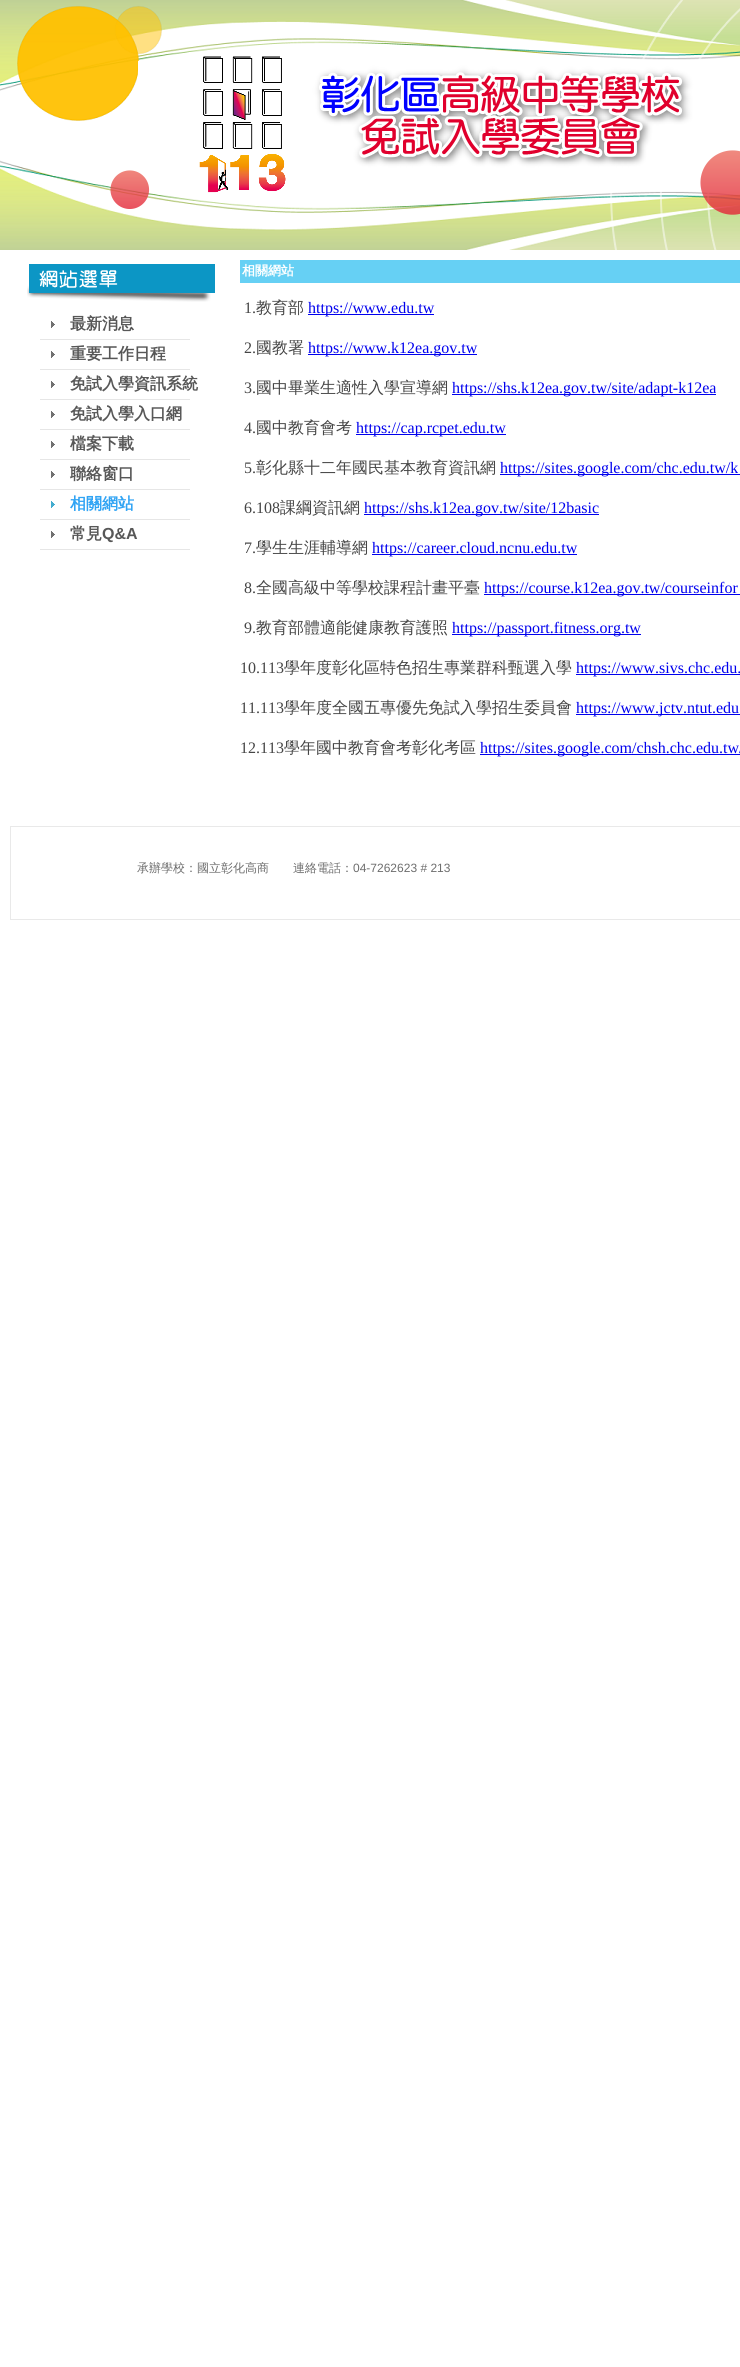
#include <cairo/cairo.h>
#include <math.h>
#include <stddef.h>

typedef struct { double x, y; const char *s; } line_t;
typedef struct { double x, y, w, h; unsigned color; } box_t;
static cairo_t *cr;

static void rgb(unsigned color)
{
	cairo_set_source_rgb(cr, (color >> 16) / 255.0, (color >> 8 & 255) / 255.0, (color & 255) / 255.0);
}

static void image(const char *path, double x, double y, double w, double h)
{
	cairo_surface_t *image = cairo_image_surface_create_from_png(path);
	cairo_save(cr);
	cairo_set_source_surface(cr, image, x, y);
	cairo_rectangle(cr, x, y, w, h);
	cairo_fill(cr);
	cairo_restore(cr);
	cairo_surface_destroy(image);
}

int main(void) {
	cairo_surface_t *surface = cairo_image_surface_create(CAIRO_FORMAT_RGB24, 740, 2367);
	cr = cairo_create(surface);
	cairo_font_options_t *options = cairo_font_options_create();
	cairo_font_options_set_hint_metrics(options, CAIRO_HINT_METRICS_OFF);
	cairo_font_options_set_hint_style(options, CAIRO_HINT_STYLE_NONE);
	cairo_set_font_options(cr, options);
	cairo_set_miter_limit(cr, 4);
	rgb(0xffffff);
	cairo_paint(cr);
	image("img/1.png", 0, 0, 740, 250);
	image("img/2.png", 27, 264, 188, 38);
	rgb(0xe6e6e6);
	cairo_rectangle(cr, 40, 339, 150, 1);
	cairo_fill(cr);
	image("img/3.png", 51, 321, 4, 7);
	cairo_rectangle(cr, 40, 369, 150, 1);
	cairo_fill(cr);
	image("img/3.png", 51, 351, 4, 7);
	cairo_rectangle(cr, 40, 399, 150, 1);
	cairo_fill(cr);
	image("img/3.png", 51, 381, 4, 7);
	cairo_rectangle(cr, 40, 429, 150, 1);
	cairo_fill(cr);
	image("img/3.png", 51, 411, 4, 7);
	cairo_rectangle(cr, 40, 459, 150, 1);
	cairo_fill(cr);
	image("img/3.png", 51, 441, 4, 7);
	cairo_rectangle(cr, 40, 489, 150, 1);
	cairo_fill(cr);
	image("img/3.png", 51, 471, 4, 7);
	cairo_rectangle(cr, 40, 519, 150, 1);
	cairo_fill(cr);
	image("img/4.png", 51, 501, 4, 7);
	cairo_rectangle(cr, 40, 549, 150, 1);
	cairo_fill(cr);
	image("img/3.png", 51, 531, 4, 7);
	{
		static const box_t items[] = {
			{240, 260, 500, 23, 0x66d0f4},
			{308, 314, 126, 1, 0x0000ee},
			{308, 354, 169, 1, 0x0000ee},
			{452, 394, 264, 1, 0x0000ee},
			{356, 434, 150, 1, 0x0000ee},
			{500, 474, 240, 1, 0x0000ee},
			{364, 514, 235, 1, 0x0000ee},
			{372, 554, 205, 1, 0x0000ee},
			{484, 594, 256, 1, 0x0000ee},
			{452, 634, 189, 1, 0x0000ee},
			{576, 674, 164, 1, 0x0000ee},
			{576, 714, 164, 1, 0x0000ee},
			{480, 754, 260, 1, 0x0000ee},
		};
		for (size_t i = 0; i < sizeof items / sizeof *items; i++) {
			rgb(items[i].color);
			cairo_rectangle(cr, items[i].x, items[i].y, items[i].w, items[i].h);
			cairo_fill(cr);
		}
	}
	cairo_rectangle(cr, 10.5, 826.5, 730, 93);
	rgb(0xe9e9e9);
	cairo_set_line_width(cr, 1);
	cairo_stroke(cr);
	cairo_select_font_face(cr, "WenQuanYi Zen Hei", CAIRO_FONT_SLANT_NORMAL, CAIRO_FONT_WEIGHT_BOLD);
	cairo_set_font_size(cr, 16);
	rgb(0x575757);
	{
		static const line_t items[] = {
			{70, 329, "最新消息"},
			{70, 359, "重要工作日程"},
			{70, 389, "免試入學資訊系統"},
			{70, 419, "免試入學入口網"},
			{70, 449, "檔案下載"},
			{70, 479, "聯絡窗口"},
		};
		for (size_t i = 0; i < sizeof items / sizeof *items; i++) {
			cairo_move_to(cr, items[i].x, items[i].y);
			cairo_show_text(cr, items[i].s);
		}
	}
	rgb(0x31a4f4);
	cairo_move_to(cr, 70, 509);
	cairo_show_text(cr, "相關網站");
	rgb(0x575757);
	cairo_move_to(cr, 70, 539);
	cairo_show_text(cr, "常見");
	cairo_select_font_face(cr, "Liberation Sans", CAIRO_FONT_SLANT_NORMAL, CAIRO_FONT_WEIGHT_BOLD);
	cairo_move_to(cr, 102, 539);
	cairo_show_text(cr, "Q&A");
	cairo_select_font_face(cr, "WenQuanYi Zen Hei", CAIRO_FONT_SLANT_NORMAL, CAIRO_FONT_WEIGHT_BOLD);
	cairo_set_font_size(cr, 13);
	rgb(0xffffff);
	cairo_move_to(cr, 242, 275);
	cairo_show_text(cr, "相關網站");
	cairo_select_font_face(cr, "Liberation Serif", CAIRO_FONT_SLANT_NORMAL, CAIRO_FONT_WEIGHT_NORMAL);
	cairo_set_font_size(cr, 16);
	rgb(0x454545);
	cairo_move_to(cr, 244, 313);
	cairo_show_text(cr, "1.");
	cairo_select_font_face(cr, "WenQuanYi Zen Hei Medium", CAIRO_FONT_SLANT_NORMAL, CAIRO_FONT_WEIGHT_NORMAL);
	cairo_move_to(cr, 256, 313);
	cairo_show_text(cr, "教育部");
	cairo_select_font_face(cr, "Liberation Serif", CAIRO_FONT_SLANT_NORMAL, CAIRO_FONT_WEIGHT_NORMAL);
	rgb(0x0000ee);
	cairo_move_to(cr, 308, 313);
	cairo_show_text(cr, "https://www.edu.tw");
	rgb(0x454545);
	cairo_move_to(cr, 244, 353);
	cairo_show_text(cr, "2.");
	cairo_select_font_face(cr, "WenQuanYi Zen Hei Medium", CAIRO_FONT_SLANT_NORMAL, CAIRO_FONT_WEIGHT_NORMAL);
	cairo_move_to(cr, 256, 353);
	cairo_show_text(cr, "國教署");
	cairo_select_font_face(cr, "Liberation Serif", CAIRO_FONT_SLANT_NORMAL, CAIRO_FONT_WEIGHT_NORMAL);
	rgb(0x0000ee);
	cairo_move_to(cr, 308, 353);
	cairo_show_text(cr, "https://www.k12ea.gov.tw");
	rgb(0x454545);
	cairo_move_to(cr, 244, 393);
	cairo_show_text(cr, "3.");
	cairo_select_font_face(cr, "WenQuanYi Zen Hei Medium", CAIRO_FONT_SLANT_NORMAL, CAIRO_FONT_WEIGHT_NORMAL);
	cairo_move_to(cr, 256, 393);
	cairo_show_text(cr, "國中畢業生適性入學宣導網");
	cairo_select_font_face(cr, "Liberation Serif", CAIRO_FONT_SLANT_NORMAL, CAIRO_FONT_WEIGHT_NORMAL);
	rgb(0x0000ee);
	cairo_move_to(cr, 452, 393);
	cairo_show_text(cr, "https://shs.k12ea.gov.tw/site/adapt-k12ea");
	rgb(0x454545);
	cairo_move_to(cr, 244, 433);
	cairo_show_text(cr, "4.");
	cairo_select_font_face(cr, "WenQuanYi Zen Hei Medium", CAIRO_FONT_SLANT_NORMAL, CAIRO_FONT_WEIGHT_NORMAL);
	cairo_move_to(cr, 256, 433);
	cairo_show_text(cr, "國中教育會考");
	cairo_select_font_face(cr, "Liberation Serif", CAIRO_FONT_SLANT_NORMAL, CAIRO_FONT_WEIGHT_NORMAL);
	rgb(0x0000ee);
	cairo_move_to(cr, 356, 433);
	cairo_show_text(cr, "https://cap.rcpet.edu.tw");
	rgb(0x454545);
	cairo_move_to(cr, 244, 473);
	cairo_show_text(cr, "5.");
	cairo_select_font_face(cr, "WenQuanYi Zen Hei Medium", CAIRO_FONT_SLANT_NORMAL, CAIRO_FONT_WEIGHT_NORMAL);
	cairo_move_to(cr, 256, 473);
	cairo_show_text(cr, "彰化縣十二年國民基本教育資訊網");
	cairo_select_font_face(cr, "Liberation Serif", CAIRO_FONT_SLANT_NORMAL, CAIRO_FONT_WEIGHT_NORMAL);
	rgb(0x0000ee);
	cairo_move_to(cr, 500, 473);
	cairo_show_text(cr, "https://sites.google.com/chc.edu.tw/k");
	rgb(0x454545);
	cairo_move_to(cr, 244, 513);
	cairo_show_text(cr, "6.108");
	cairo_select_font_face(cr, "WenQuanYi Zen Hei Medium", CAIRO_FONT_SLANT_NORMAL, CAIRO_FONT_WEIGHT_NORMAL);
	cairo_move_to(cr, 280, 513);
	cairo_show_text(cr, "課綱資訊網");
	cairo_select_font_face(cr, "Liberation Serif", CAIRO_FONT_SLANT_NORMAL, CAIRO_FONT_WEIGHT_NORMAL);
	rgb(0x0000ee);
	cairo_move_to(cr, 364, 513);
	cairo_show_text(cr, "https://shs.k12ea.gov.tw/site/12basic");
	rgb(0x454545);
	cairo_move_to(cr, 244, 553);
	cairo_show_text(cr, "7.");
	cairo_select_font_face(cr, "WenQuanYi Zen Hei Medium", CAIRO_FONT_SLANT_NORMAL, CAIRO_FONT_WEIGHT_NORMAL);
	cairo_move_to(cr, 256, 553);
	cairo_show_text(cr, "學生生涯輔導網");
	cairo_select_font_face(cr, "Liberation Serif", CAIRO_FONT_SLANT_NORMAL, CAIRO_FONT_WEIGHT_NORMAL);
	rgb(0x0000ee);
	cairo_move_to(cr, 372, 553);
	cairo_show_text(cr, "https://career.cloud.ncnu.edu.tw");
	rgb(0x454545);
	cairo_move_to(cr, 244, 593);
	cairo_show_text(cr, "8.");
	cairo_select_font_face(cr, "WenQuanYi Zen Hei Medium", CAIRO_FONT_SLANT_NORMAL, CAIRO_FONT_WEIGHT_NORMAL);
	cairo_move_to(cr, 256, 593);
	cairo_show_text(cr, "全國高級中等學校課程計畫平臺");
	cairo_select_font_face(cr, "Liberation Serif", CAIRO_FONT_SLANT_NORMAL, CAIRO_FONT_WEIGHT_NORMAL);
	rgb(0x0000ee);
	cairo_move_to(cr, 484, 593);
	cairo_show_text(cr, "https://course.k12ea.gov.tw/courseinfor");
	rgb(0x454545);
	cairo_move_to(cr, 244, 633);
	cairo_show_text(cr, "9.");
	cairo_select_font_face(cr, "WenQuanYi Zen Hei Medium", CAIRO_FONT_SLANT_NORMAL, CAIRO_FONT_WEIGHT_NORMAL);
	cairo_move_to(cr, 256, 633);
	cairo_show_text(cr, "教育部體適能健康教育護照");
	cairo_select_font_face(cr, "Liberation Serif", CAIRO_FONT_SLANT_NORMAL, CAIRO_FONT_WEIGHT_NORMAL);
	rgb(0x0000ee);
	cairo_move_to(cr, 452, 633);
	cairo_show_text(cr, "https://passport.fitness.org.tw");
	rgb(0x454545);
	cairo_move_to(cr, 240, 673);
	cairo_show_text(cr, "10.113");
	cairo_select_font_face(cr, "WenQuanYi Zen Hei Medium", CAIRO_FONT_SLANT_NORMAL, CAIRO_FONT_WEIGHT_NORMAL);
	cairo_move_to(cr, 284, 673);
	cairo_show_text(cr, "學年度彰化區特色招生專業群科甄選入學");
	cairo_select_font_face(cr, "Liberation Serif", CAIRO_FONT_SLANT_NORMAL, CAIRO_FONT_WEIGHT_NORMAL);
	rgb(0x0000ee);
	cairo_move_to(cr, 576, 673);
	cairo_show_text(cr, "https://www.sivs.chc.edu.");
	rgb(0x454545);
	cairo_move_to(cr, 240, 713);
	cairo_show_text(cr, "11.113");
	cairo_select_font_face(cr, "WenQuanYi Zen Hei Medium", CAIRO_FONT_SLANT_NORMAL, CAIRO_FONT_WEIGHT_NORMAL);
	cairo_move_to(cr, 284, 713);
	cairo_show_text(cr, "學年度全國五專優先免試入學招生委員會");
	cairo_select_font_face(cr, "Liberation Serif", CAIRO_FONT_SLANT_NORMAL, CAIRO_FONT_WEIGHT_NORMAL);
	rgb(0x0000ee);
	cairo_move_to(cr, 576, 713);
	cairo_show_text(cr, "https://www.jctv.ntut.edu");
	rgb(0x454545);
	cairo_move_to(cr, 240, 753);
	cairo_show_text(cr, "12.113");
	cairo_select_font_face(cr, "WenQuanYi Zen Hei Medium", CAIRO_FONT_SLANT_NORMAL, CAIRO_FONT_WEIGHT_NORMAL);
	cairo_move_to(cr, 284, 753);
	cairo_show_text(cr, "學年國中教育會考彰化考區");
	cairo_select_font_face(cr, "Liberation Serif", CAIRO_FONT_SLANT_NORMAL, CAIRO_FONT_WEIGHT_NORMAL);
	rgb(0x0000ee);
	cairo_move_to(cr, 480, 753);
	cairo_show_text(cr, "https://sites.google.com/chsh.chc.edu.tw/");
	cairo_select_font_face(cr, "WenQuanYi Zen Hei Medium", CAIRO_FONT_SLANT_NORMAL, CAIRO_FONT_WEIGHT_NORMAL);
	cairo_set_font_size(cr, 12);
	rgb(0x6d6d6d);
	cairo_move_to(cr, 137, 872);
	cairo_show_text(cr, "承辦學校：國立彰化高商　　連絡電話：");
	cairo_select_font_face(cr, "Liberation Sans", CAIRO_FONT_SLANT_NORMAL, CAIRO_FONT_WEIGHT_NORMAL);
	cairo_move_to(cr, 353, 872);
	cairo_show_text(cr, "04-7262623 # 213");
	cairo_surface_write_to_png(surface, "page.png");
	cairo_font_options_destroy(options);
	cairo_destroy(cr);
	cairo_surface_destroy(surface);
	return 0;
}
